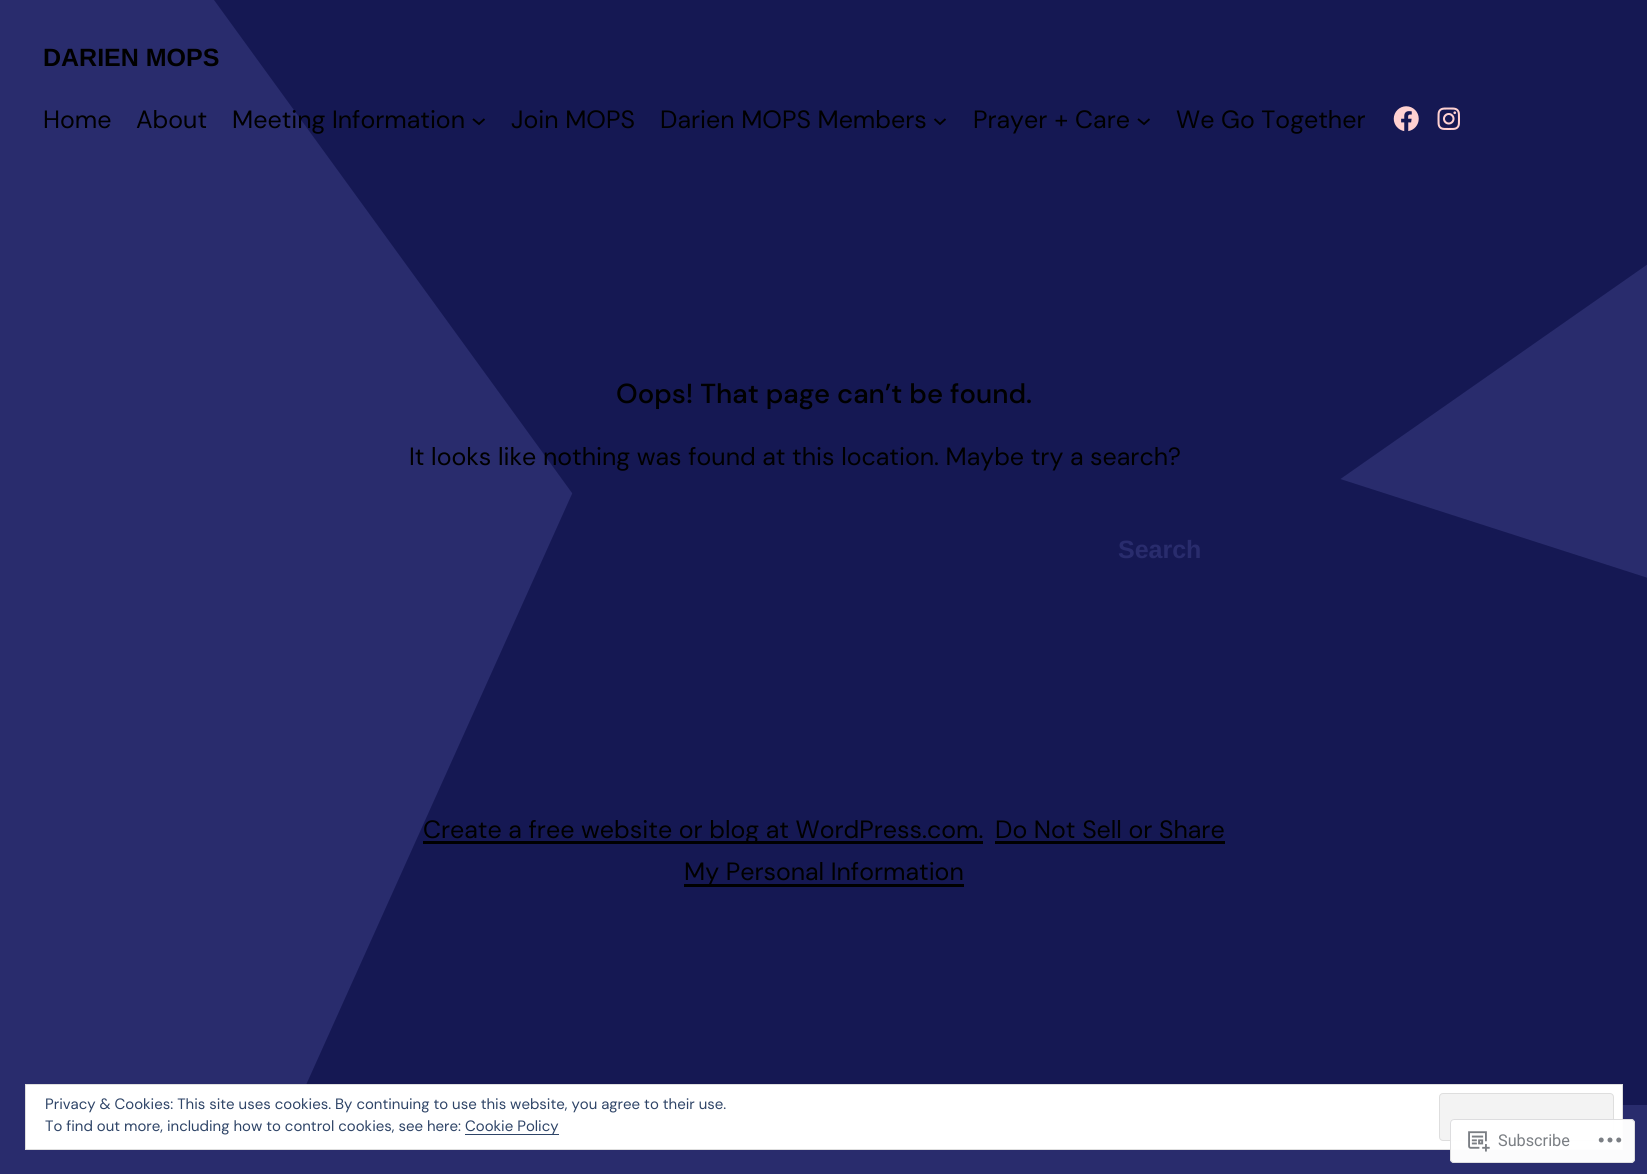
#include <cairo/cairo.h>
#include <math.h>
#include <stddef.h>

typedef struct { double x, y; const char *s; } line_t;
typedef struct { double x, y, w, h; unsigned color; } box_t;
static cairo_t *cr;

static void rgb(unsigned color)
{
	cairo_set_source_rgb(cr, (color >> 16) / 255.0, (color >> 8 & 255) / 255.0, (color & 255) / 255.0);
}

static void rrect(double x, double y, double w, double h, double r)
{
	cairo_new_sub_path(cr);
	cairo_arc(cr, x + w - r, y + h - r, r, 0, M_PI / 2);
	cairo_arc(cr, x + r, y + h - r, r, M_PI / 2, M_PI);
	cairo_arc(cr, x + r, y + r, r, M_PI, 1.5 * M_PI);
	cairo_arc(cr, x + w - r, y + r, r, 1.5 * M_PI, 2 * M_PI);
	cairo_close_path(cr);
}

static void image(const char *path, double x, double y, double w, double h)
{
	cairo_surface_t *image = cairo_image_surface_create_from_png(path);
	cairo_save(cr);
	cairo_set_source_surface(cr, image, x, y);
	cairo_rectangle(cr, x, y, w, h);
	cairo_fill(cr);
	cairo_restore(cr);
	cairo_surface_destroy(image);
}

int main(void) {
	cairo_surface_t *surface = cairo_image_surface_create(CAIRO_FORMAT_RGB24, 1647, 1174);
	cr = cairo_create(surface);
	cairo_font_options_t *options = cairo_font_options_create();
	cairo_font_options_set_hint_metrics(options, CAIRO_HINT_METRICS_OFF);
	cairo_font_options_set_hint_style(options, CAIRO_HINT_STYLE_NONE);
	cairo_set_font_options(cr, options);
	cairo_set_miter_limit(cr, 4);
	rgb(0x292c6d);
	cairo_paint(cr);
	rgb(0x151853);
	cairo_new_path(cr);
	cairo_move_to(cr, 214, 0);
	cairo_line_to(cr, 824, 840);
	cairo_line_to(cr, 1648, 264);
	cairo_line_to(cr, 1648, 0);
	cairo_close_path(cr);
	cairo_fill(cr);
	cairo_new_path(cr);
	cairo_move_to(cr, 473, 119);
	cairo_line_to(cr, 479, 124);
	cairo_line_to(cr, 484.5, 119);
	rgb(0x000000);
	cairo_set_line_width(cr, 1.9);
	cairo_stroke(cr);
	cairo_new_path(cr);
	cairo_move_to(cr, 934.5, 119);
	cairo_line_to(cr, 940, 124);
	cairo_line_to(cr, 945.5, 119);
	cairo_stroke(cr);
	cairo_new_path(cr);
	cairo_move_to(cr, 1138, 119);
	cairo_line_to(cr, 1144, 124);
	cairo_line_to(cr, 1149.5, 119);
	cairo_stroke(cr);
	image("img/1.png", 1393, 106, 26, 26);
	image("img/2.png", 1437, 107, 23, 23);
	rgb(0x151853);
	cairo_new_path(cr);
	cairo_move_to(cr, 675, 265);
	cairo_line_to(cr, 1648, 578);
	cairo_line_to(cr, 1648, 1105);
	cairo_line_to(cr, 297, 1105);
	cairo_close_path(cr);
	cairo_fill(cr);
	{
		static const box_t items[] = {
			{423, 841, 560, 3, 0x000000},
			{995, 841, 230, 3, 0x000000},
			{684, 884, 280, 3, 0x000000},
		};
		for (size_t i = 0; i < sizeof items / sizeof *items; i++) {
			rgb(items[i].color);
			cairo_rectangle(cr, items[i].x, items[i].y, items[i].w, items[i].h);
			cairo_fill(cr);
		}
	}
	rgb(0xffffff);
	cairo_rectangle(cr, 25.5, 1084.5, 1597, 65);
	cairo_fill_preserve(cr);
	rgb(0xdedede);
	cairo_set_line_width(cr, 1);
	cairo_stroke(cr);
	rgb(0xf3f3f3);
	rrect(1439.5, 1093.5, 174, 47, 3.5);
	cairo_fill_preserve(cr);
	rgb(0xdedede);
	cairo_stroke(cr);
	rgb(0x2e4467);
	cairo_rectangle(cr, 465, 1134, 94, 1);
	cairo_fill(cr);
	cairo_set_source_rgba(cr, 1, 1, 1, 0.98);
	rrect(1450, 1119, 185, 44, 4);
	cairo_fill(cr);
	rrect(1450.5, 1119.5, 184, 43, 3.5);
	cairo_set_source_rgba(cr, 0.863, 0.863, 0.871, 0.98);
	cairo_stroke(cr);
	image("img/3.png", 1468, 1131, 22, 21);
	image("img/4.png", 1598, 1137, 24, 6);
	cairo_select_font_face(cr, "Liberation Sans", CAIRO_FONT_SLANT_NORMAL, CAIRO_FONT_WEIGHT_BOLD);
	cairo_set_font_size(cr, 25);
	rgb(0x000000);
	cairo_move_to(cr, 43, 66);
	cairo_show_text(cr, "DARIEN MOPS");
	cairo_select_font_face(cr, "DM Sans", CAIRO_FONT_SLANT_NORMAL, CAIRO_FONT_WEIGHT_NORMAL);
	{
		static const line_t items[] = {
			{43, 128, "Home"},
			{136, 128, "About"},
			{232, 128, "Meeting Information"},
			{511, 128, "Join MOPS"},
			{660, 128, "Darien MOPS Members"},
			{973, 128, "Prayer + Care"},
			{1176, 128, "We Go Together"},
		};
		for (size_t i = 0; i < sizeof items / sizeof *items; i++) {
			cairo_move_to(cr, items[i].x, items[i].y);
			cairo_show_text(cr, items[i].s);
		}
	}
	cairo_select_font_face(cr, "DM Sans Medium", CAIRO_FONT_SLANT_NORMAL, CAIRO_FONT_WEIGHT_NORMAL);
	cairo_set_font_size(cr, 27.5);
	cairo_move_to(cr, 616, 403);
	cairo_show_text(cr, "Oops! That page can’t be found.");
	cairo_select_font_face(cr, "DM Sans", CAIRO_FONT_SLANT_NORMAL, CAIRO_FONT_WEIGHT_NORMAL);
	cairo_set_font_size(cr, 25);
	cairo_move_to(cr, 409, 465);
	cairo_show_text(cr, "It looks like nothing was found at this location. Maybe try a search?");
	cairo_select_font_face(cr, "Liberation Sans", CAIRO_FONT_SLANT_NORMAL, CAIRO_FONT_WEIGHT_BOLD);
	rgb(0x292c6d);
	cairo_move_to(cr, 1118, 558);
	cairo_show_text(cr, "Search");
	cairo_select_font_face(cr, "DM Sans", CAIRO_FONT_SLANT_NORMAL, CAIRO_FONT_WEIGHT_NORMAL);
	rgb(0x000000);
	{
		static const line_t items[] = {
			{423, 838, "Create a free website or blog at WordPress.com."},
			{995, 838, "Do Not Sell or Share"},
			{684, 880, "My Personal Information"},
		};
		for (size_t i = 0; i < sizeof items / sizeof *items; i++) {
			cairo_move_to(cr, items[i].x, items[i].y);
			cairo_show_text(cr, items[i].s);
		}
	}
	cairo_set_font_size(cr, 15);
	rgb(0x2e4467);
	{
		static const line_t items[] = {
			{45, 1109, "Privacy & Cookies: This site uses cookies. By continuing to use this website, you agree to their use."},
			{45, 1131, "To find out more, including how to control cookies, see here:"},
			{465, 1131, "Cookie Policy"},
		};
		for (size_t i = 0; i < sizeof items / sizeof *items; i++) {
			cairo_move_to(cr, items[i].x, items[i].y);
			cairo_show_text(cr, items[i].s);
		}
	}
	cairo_select_font_face(cr, "Roboto", CAIRO_FONT_SLANT_NORMAL, CAIRO_FONT_WEIGHT_NORMAL);
	cairo_set_font_size(cr, 16.25);
	rgb(0x7b7f84);
	cairo_move_to(cr, 1498, 1146);
	cairo_show_text(cr, "Subscribe");
	cairo_surface_write_to_png(surface, "page.png");
	cairo_font_options_destroy(options);
	cairo_destroy(cr);
	cairo_surface_destroy(surface);
	return 0;
}
